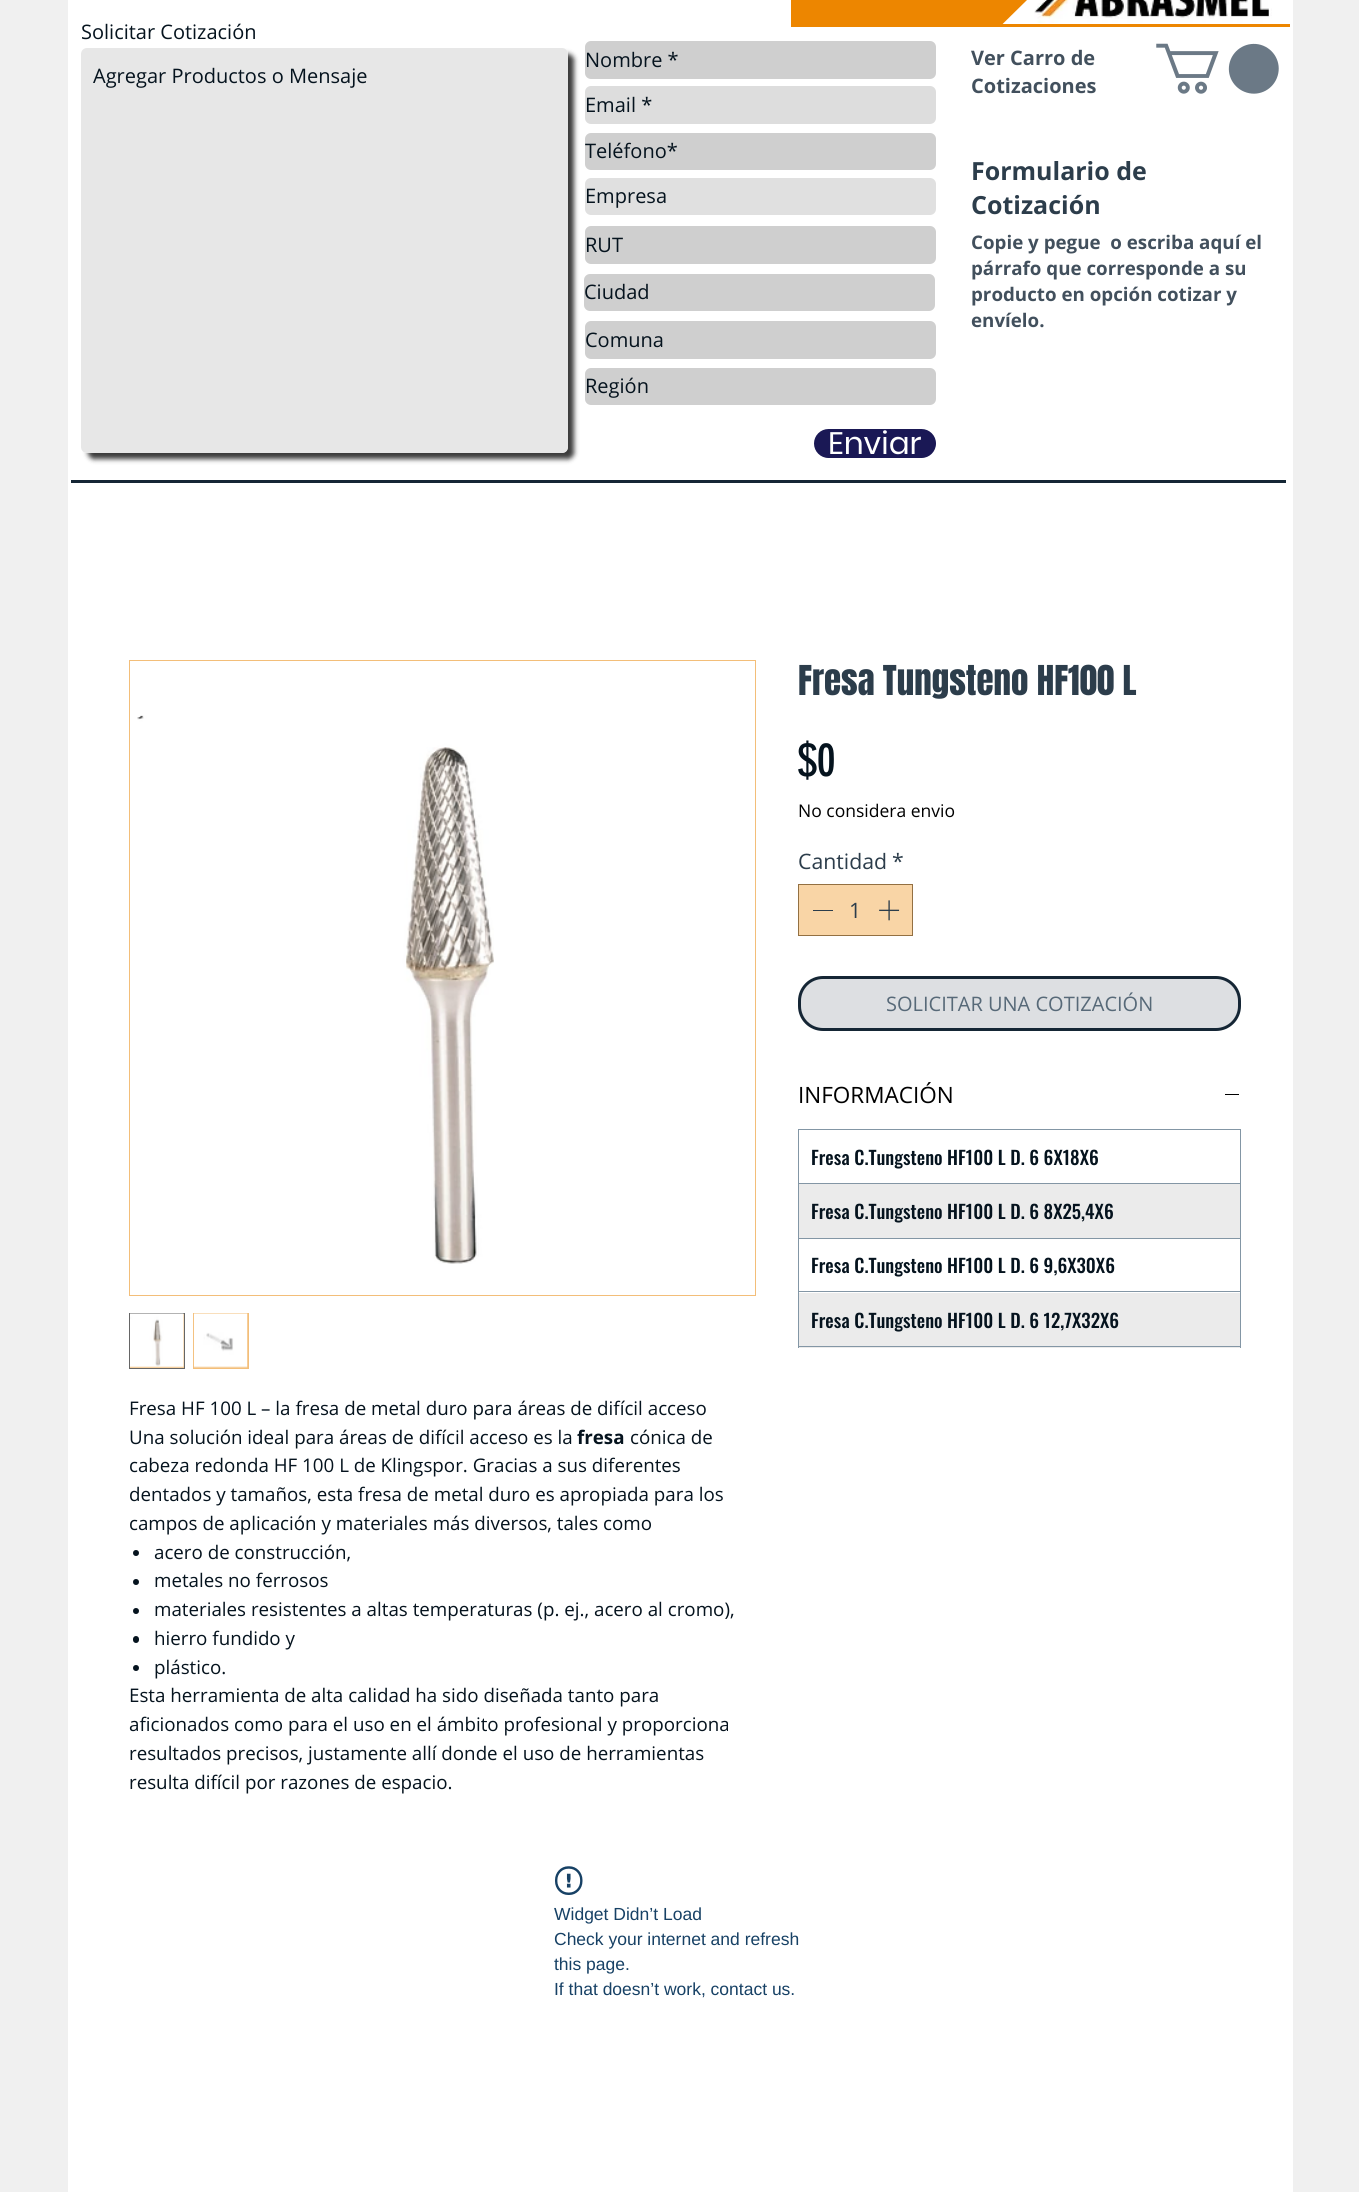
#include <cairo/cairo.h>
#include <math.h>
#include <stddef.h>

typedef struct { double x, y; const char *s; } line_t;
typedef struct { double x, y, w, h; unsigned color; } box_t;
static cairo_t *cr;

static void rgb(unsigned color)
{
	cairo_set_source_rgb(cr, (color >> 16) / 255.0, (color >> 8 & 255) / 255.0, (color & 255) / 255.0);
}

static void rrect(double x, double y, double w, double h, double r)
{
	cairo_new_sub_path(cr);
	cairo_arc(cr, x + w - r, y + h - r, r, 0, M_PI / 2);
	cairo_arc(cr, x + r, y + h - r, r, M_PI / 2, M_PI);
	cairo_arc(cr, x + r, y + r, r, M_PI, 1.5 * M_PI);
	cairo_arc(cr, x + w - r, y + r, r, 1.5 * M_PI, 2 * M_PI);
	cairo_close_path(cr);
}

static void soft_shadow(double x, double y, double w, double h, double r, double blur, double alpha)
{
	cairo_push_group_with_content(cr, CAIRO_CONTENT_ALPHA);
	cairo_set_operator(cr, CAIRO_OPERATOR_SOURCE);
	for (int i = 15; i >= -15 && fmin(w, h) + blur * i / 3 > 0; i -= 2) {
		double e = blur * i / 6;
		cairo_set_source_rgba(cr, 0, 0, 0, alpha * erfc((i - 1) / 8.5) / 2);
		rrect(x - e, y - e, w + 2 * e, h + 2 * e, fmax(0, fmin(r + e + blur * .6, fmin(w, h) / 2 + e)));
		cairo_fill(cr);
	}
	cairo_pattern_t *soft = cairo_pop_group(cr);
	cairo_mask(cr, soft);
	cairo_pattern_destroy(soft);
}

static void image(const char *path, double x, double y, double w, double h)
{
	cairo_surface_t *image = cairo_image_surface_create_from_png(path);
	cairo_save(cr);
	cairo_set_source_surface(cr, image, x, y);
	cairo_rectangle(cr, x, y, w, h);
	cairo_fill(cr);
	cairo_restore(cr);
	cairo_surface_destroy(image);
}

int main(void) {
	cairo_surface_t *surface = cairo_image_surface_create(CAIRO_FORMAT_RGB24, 1359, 2192);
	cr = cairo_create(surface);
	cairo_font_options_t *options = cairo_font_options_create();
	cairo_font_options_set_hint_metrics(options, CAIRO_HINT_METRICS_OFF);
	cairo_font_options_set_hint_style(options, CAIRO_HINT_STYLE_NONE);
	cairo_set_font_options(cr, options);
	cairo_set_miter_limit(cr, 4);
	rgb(0xf0f0f0);
	cairo_paint(cr);
	rgb(0xffffff);
	cairo_rectangle(cr, 68, 0, 1225, 2192);
	cairo_fill(cr);
	rgb(0xed8600);
	cairo_rectangle(cr, 791, 0, 174, 24);
	cairo_fill(cr);
	cairo_save(cr);
	cairo_rectangle(cr, 791, 0, 237, 24);
	cairo_clip(cr);
	cairo_new_path(cr);
	cairo_move_to(cr, 965, -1);
	cairo_line_to(cr, 1028, -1);
	cairo_line_to(cr, 965, 61);
	cairo_close_path(cr);
	cairo_fill(cr);
	cairo_restore(cr);
	image("img/1.png", 1034, 0, 238, 23);
	cairo_save(cr);
	cairo_set_fill_rule(cr, CAIRO_FILL_RULE_EVEN_ODD);
	cairo_new_path(cr);
	cairo_move_to(cr, 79, 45);
	cairo_line_to(cr, 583, 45);
	cairo_line_to(cr, 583, 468);
	cairo_line_to(cr, 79, 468);
	cairo_close_path(cr);
	cairo_move_to(cr, 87, 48);
	cairo_line_to(cr, 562, 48);
	cairo_curve_to(cr, 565.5, 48, 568, 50.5, 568, 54);
	cairo_line_to(cr, 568, 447);
	cairo_curve_to(cr, 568, 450.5, 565.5, 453, 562, 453);
	cairo_line_to(cr, 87, 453);
	cairo_curve_to(cr, 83.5, 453, 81, 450.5, 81, 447);
	cairo_line_to(cr, 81, 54);
	cairo_curve_to(cr, 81, 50.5, 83.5, 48, 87, 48);
	cairo_close_path(cr);
	cairo_clip(cr);
	rgb(0x000000);
	soft_shadow(88, 54, 486, 405, 6, 2.5, 0.77);
	cairo_restore(cr);
	cairo_set_source_rgba(cr, 0.812, 0.812, 0.812, 0.51);
	rrect(81, 48, 487, 405, 6);
	cairo_fill(cr);
	rgb(0xcfcfcf);
	rrect(585, 41, 351, 38, 6);
	cairo_fill(cr);
	rgb(0xdddddd);
	rrect(585, 86, 351, 38, 6);
	cairo_fill(cr);
	rgb(0xcfcfcf);
	rrect(585, 133, 351, 37, 6);
	cairo_fill(cr);
	rgb(0xe0e0e0);
	rrect(585, 178, 351, 37, 6);
	cairo_fill(cr);
	rgb(0xcfcfcf);
	rrect(585, 226, 351, 38, 6);
	cairo_fill(cr);
	rrect(584, 274, 351, 37, 6);
	cairo_fill(cr);
	rrect(585, 321, 351, 38, 6);
	cairo_fill(cr);
	rrect(585, 368, 351, 37, 6);
	cairo_fill(cr);
	rgb(0x1a1855);
	rrect(814, 429, 122, 29, 14.5);
	cairo_fill(cr);
	rgb(0xed8600);
	cairo_rectangle(cr, 791, 24, 499, 3);
	cairo_fill(cr);
	image("img/2.png", 1156, 43, 123, 51);
	rgb(0x152635);
	cairo_rectangle(cr, 71, 480, 1215, 3);
	cairo_fill(cr);
	rgb(0xf9d5a6);
	cairo_rectangle(cr, 798.5, 884.5, 114, 51);
	cairo_fill_preserve(cr);
	rgb(0x937042);
	cairo_set_line_width(cr, 1);
	cairo_stroke(cr);
	rgb(0x2c3d4b);
	cairo_rectangle(cr, 813, 910, 20, 1);
	cairo_fill(cr);
	image("img/3.png", 879, 900, 21, 21);
	rgb(0xdddfe2);
	rrect(799.5, 977.5, 440, 52, 23.5);
	cairo_fill_preserve(cr);
	rgb(0x152635);
	cairo_set_line_width(cr, 3);
	cairo_stroke(cr);
	{
		static const box_t items[] = {
			{1225, 1094, 14, 1, 0x000000},
			{799, 1184, 441, 164, 0xebebeb},
			{798, 1129, 443, 1, 0x8396a5},
			{798, 1183, 443, 1, 0x8396a5},
			{798, 1238, 443, 1, 0x8396a5},
			{799, 1239, 441, 54, 0xffffff},
			{798, 1291, 443, 1, 0x8396a5},
			{1240, 1291, 1, 57, 0x8396a5},
			{1240, 1238, 1, 55, 0x8396a5},
			{1240, 1183, 1, 56, 0x8396a5},
			{1240, 1129, 1, 55, 0x8396a5},
			{798, 1346, 443, 1, 0x8396a5},
			{798, 1291, 1, 57, 0x8396a5},
			{798, 1238, 1, 55, 0x8396a5},
			{798, 1183, 1, 56, 0x8396a5},
			{798, 1129, 1, 55, 0x8396a5},
		};
		for (size_t i = 0; i < sizeof items / sizeof *items; i++) {
			rgb(items[i].color);
			cairo_rectangle(cr, items[i].x, items[i].y, items[i].w, items[i].h);
			cairo_fill(cr);
		}
	}
	cairo_rectangle(cr, 129.5, 660.5, 626, 635);
	rgb(0xf3be79);
	cairo_set_line_width(cr, 1);
	cairo_stroke(cr);
	image("img/4.png", 137, 715, 357, 549);
	cairo_rectangle(cr, 129.5, 1313.5, 55, 55);
	cairo_fill_preserve(cr);
	rgb(0x666666);
	cairo_stroke(cr);
	image("img/5.png", 130, 1313, 54, 55);
	rgb(0xf3be79);
	cairo_rectangle(cr, 193, 1313, 56, 56);
	cairo_fill(cr);
	image("img/6.png", 193, 1313, 55, 55);
	rgb(0x05131e);
	cairo_arc(cr, 136, 1553, 3, 0, 2 * M_PI);
	cairo_fill(cr);
	cairo_arc(cr, 136, 1582, 3, 0, 2 * M_PI);
	cairo_fill(cr);
	cairo_arc(cr, 136, 1611, 3, 0, 2 * M_PI);
	cairo_fill(cr);
	rrect(133, 1636, 6, 7, 3);
	cairo_fill(cr);
	cairo_arc(cr, 136, 1668, 3, 0, 2 * M_PI);
	cairo_fill(cr);
	image("img/7.png", 555, 1866, 28, 29);
	cairo_select_font_face(cr, "Open Sans", CAIRO_FONT_SLANT_NORMAL, CAIRO_FONT_WEIGHT_NORMAL);
	cairo_set_font_size(cr, 20);
	{
		static const line_t items[] = {
			{81, 39, "Solicitar Cotización"},
			{93, 83, "Agregar Productos o Mensaje"},
			{585, 67, "Nombre *"},
			{585, 112, "Email *"},
			{585, 158, "Teléfono*"},
			{585, 203, "Empresa"},
			{585, 252, "RUT"},
			{584, 299, "Ciudad"},
			{585, 347, "Comuna"},
			{585, 393, "Región"},
		};
		for (size_t i = 0; i < sizeof items / sizeof *items; i++) {
			cairo_move_to(cr, items[i].x, items[i].y);
			cairo_show_text(cr, items[i].s);
		}
	}
	cairo_select_font_face(cr, "Poppins", CAIRO_FONT_SLANT_NORMAL, CAIRO_FONT_WEIGHT_NORMAL);
	cairo_set_font_size(cr, 31);
	rgb(0xffffff);
	cairo_move_to(cr, 828, 454);
	cairo_show_text(cr, "Enviar");
	cairo_select_font_face(cr, "Open Sans", CAIRO_FONT_SLANT_NORMAL, CAIRO_FONT_WEIGHT_BOLD);
	cairo_set_font_size(cr, 20);
	rgb(0x42505d);
	cairo_move_to(cr, 971, 65);
	cairo_show_text(cr, "Ver Carro de");
	cairo_move_to(cr, 971, 93);
	cairo_show_text(cr, "Cotizaciones");
	cairo_set_font_size(cr, 25);
	rgb(0x2c3d4b);
	cairo_move_to(cr, 971, 180);
	cairo_show_text(cr, "Formulario de");
	cairo_move_to(cr, 971, 214);
	cairo_show_text(cr, "Cotización");
	cairo_set_font_size(cr, 18.75);
	rgb(0x42505d);
	{
		static const line_t items[] = {
			{971, 249, "Copie y pegue  o escriba aquí el"},
			{971, 275, "párrafo que corresponde a su"},
			{971, 301, "producto en opción cotizar y"},
			{971, 327, "envíelo."},
		};
		for (size_t i = 0; i < sizeof items / sizeof *items; i++) {
			cairo_move_to(cr, items[i].x, items[i].y);
			cairo_show_text(cr, items[i].s);
		}
	}
	cairo_select_font_face(cr, "Anton", CAIRO_FONT_SLANT_NORMAL, CAIRO_FONT_WEIGHT_NORMAL);
	cairo_set_font_size(cr, 35);
	rgb(0x2c3d4b);
	cairo_move_to(cr, 798, 695);
	cairo_show_text(cr, "Fresa Tungsteno HF100 L");
	cairo_select_font_face(cr, "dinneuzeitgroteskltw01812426", CAIRO_FONT_SLANT_NORMAL, CAIRO_FONT_WEIGHT_NORMAL);
	cairo_set_font_size(cr, 46);
	rgb(0x05131e);
	cairo_move_to(cr, 798, 776);
	cairo_show_text(cr, "$0");
	cairo_select_font_face(cr, "Open Sans", CAIRO_FONT_SLANT_NORMAL, CAIRO_FONT_WEIGHT_NORMAL);
	cairo_set_font_size(cr, 17.5);
	rgb(0x000000);
	cairo_move_to(cr, 798, 817);
	cairo_show_text(cr, "No considera envio");
	cairo_set_font_size(cr, 21.25);
	rgb(0x2c3d4b);
	{
		static const line_t items[] = {
			{798, 869, "Cantidad"},
			{892, 869, "*"},
			{849, 918, "1"},
		};
		for (size_t i = 0; i < sizeof items / sizeof *items; i++) {
			cairo_move_to(cr, items[i].x, items[i].y);
			cairo_show_text(cr, items[i].s);
		}
	}
	cairo_set_font_size(cr, 20);
	rgb(0x576978);
	cairo_move_to(cr, 886, 1011);
	cairo_show_text(cr, "SOLICITAR UNA COTIZACIÓN");
	cairo_set_font_size(cr, 22.5);
	rgb(0x000000);
	cairo_move_to(cr, 798, 1103);
	cairo_show_text(cr, "INFORMACIÓN");
	cairo_select_font_face(cr, "Oswald Medium", CAIRO_FONT_SLANT_NORMAL, CAIRO_FONT_WEIGHT_NORMAL);
	cairo_set_font_size(cr, 18.75);
	rgb(0x05131e);
	{
		static const line_t items[] = {
			{811, 1165, "Fresa C.Tungsteno HF100 L D. 6 6X18X6"},
			{811, 1219, "Fresa C.Tungsteno HF100 L D. 6 8X25,4X6"},
			{811, 1273, "Fresa C.Tungsteno HF100 L D. 6 9,6X30X6"},
			{811, 1328, "Fresa C.Tungsteno HF100 L D. 6 12,7X32X6"},
		};
		for (size_t i = 0; i < sizeof items / sizeof *items; i++) {
			cairo_move_to(cr, items[i].x, items[i].y);
			cairo_show_text(cr, items[i].s);
		}
	}
	cairo_select_font_face(cr, "Open Sans", CAIRO_FONT_SLANT_NORMAL, CAIRO_FONT_WEIGHT_NORMAL);
	cairo_move_to(cr, 129, 1415);
	cairo_show_text(cr, "Fresa HF 100 L – la fresa de metal duro para áreas de difícil acceso");
	cairo_move_to(cr, 129, 1444);
	cairo_show_text(cr, "Una solución ideal para áreas de difícil acceso es la");
	cairo_select_font_face(cr, "Open Sans", CAIRO_FONT_SLANT_NORMAL, CAIRO_FONT_WEIGHT_BOLD);
	cairo_move_to(cr, 577, 1444);
	cairo_show_text(cr, "fresa");
	cairo_select_font_face(cr, "Open Sans", CAIRO_FONT_SLANT_NORMAL, CAIRO_FONT_WEIGHT_NORMAL);
	{
		static const line_t items[] = {
			{630, 1444, "cónica de"},
			{129, 1472, "cabeza redonda HF 100 L de Klingspor. Gracias a sus diferentes"},
			{129, 1501, "dentados y tamaños, esta fresa de metal duro es apropiada para los"},
			{129, 1530, "campos de aplicación y materiales más diversos, tales como"},
			{154, 1559, "acero de construcción,"},
			{154, 1587, "metales no ferrosos"},
			{154, 1616, "materiales resistentes a altas temperaturas (p. ej., acero al cromo),"},
			{154, 1645, "hierro fundido y"},
			{154, 1674, "plástico."},
			{129, 1702, "Esta herramienta de alta calidad ha sido diseñada tanto para"},
			{129, 1731, "aficionados como para el uso en el ámbito profesional y proporciona"},
			{129, 1760, "resultados precisos, justamente allí donde el uso de herramientas"},
			{129, 1789, "resulta difícil por razones de espacio."},
		};
		for (size_t i = 0; i < sizeof items / sizeof *items; i++) {
			cairo_move_to(cr, items[i].x, items[i].y);
			cairo_show_text(cr, items[i].s);
		}
	}
	cairo_select_font_face(cr, "Liberation Sans", CAIRO_FONT_SLANT_NORMAL, CAIRO_FONT_WEIGHT_NORMAL);
	cairo_set_font_size(cr, 17.5);
	rgb(0x174165);
	{
		static const line_t items[] = {
			{554, 1920, "Widget Didn’t Load"},
			{554, 1945, "Check your internet and refresh"},
			{554, 1970, "this page."},
			{554, 1995, "If that doesn’t work, contact us."},
		};
		for (size_t i = 0; i < sizeof items / sizeof *items; i++) {
			cairo_move_to(cr, items[i].x, items[i].y);
			cairo_show_text(cr, items[i].s);
		}
	}
	cairo_surface_write_to_png(surface, "page.png");
	cairo_font_options_destroy(options);
	cairo_destroy(cr);
	cairo_surface_destroy(surface);
	return 0;
}
